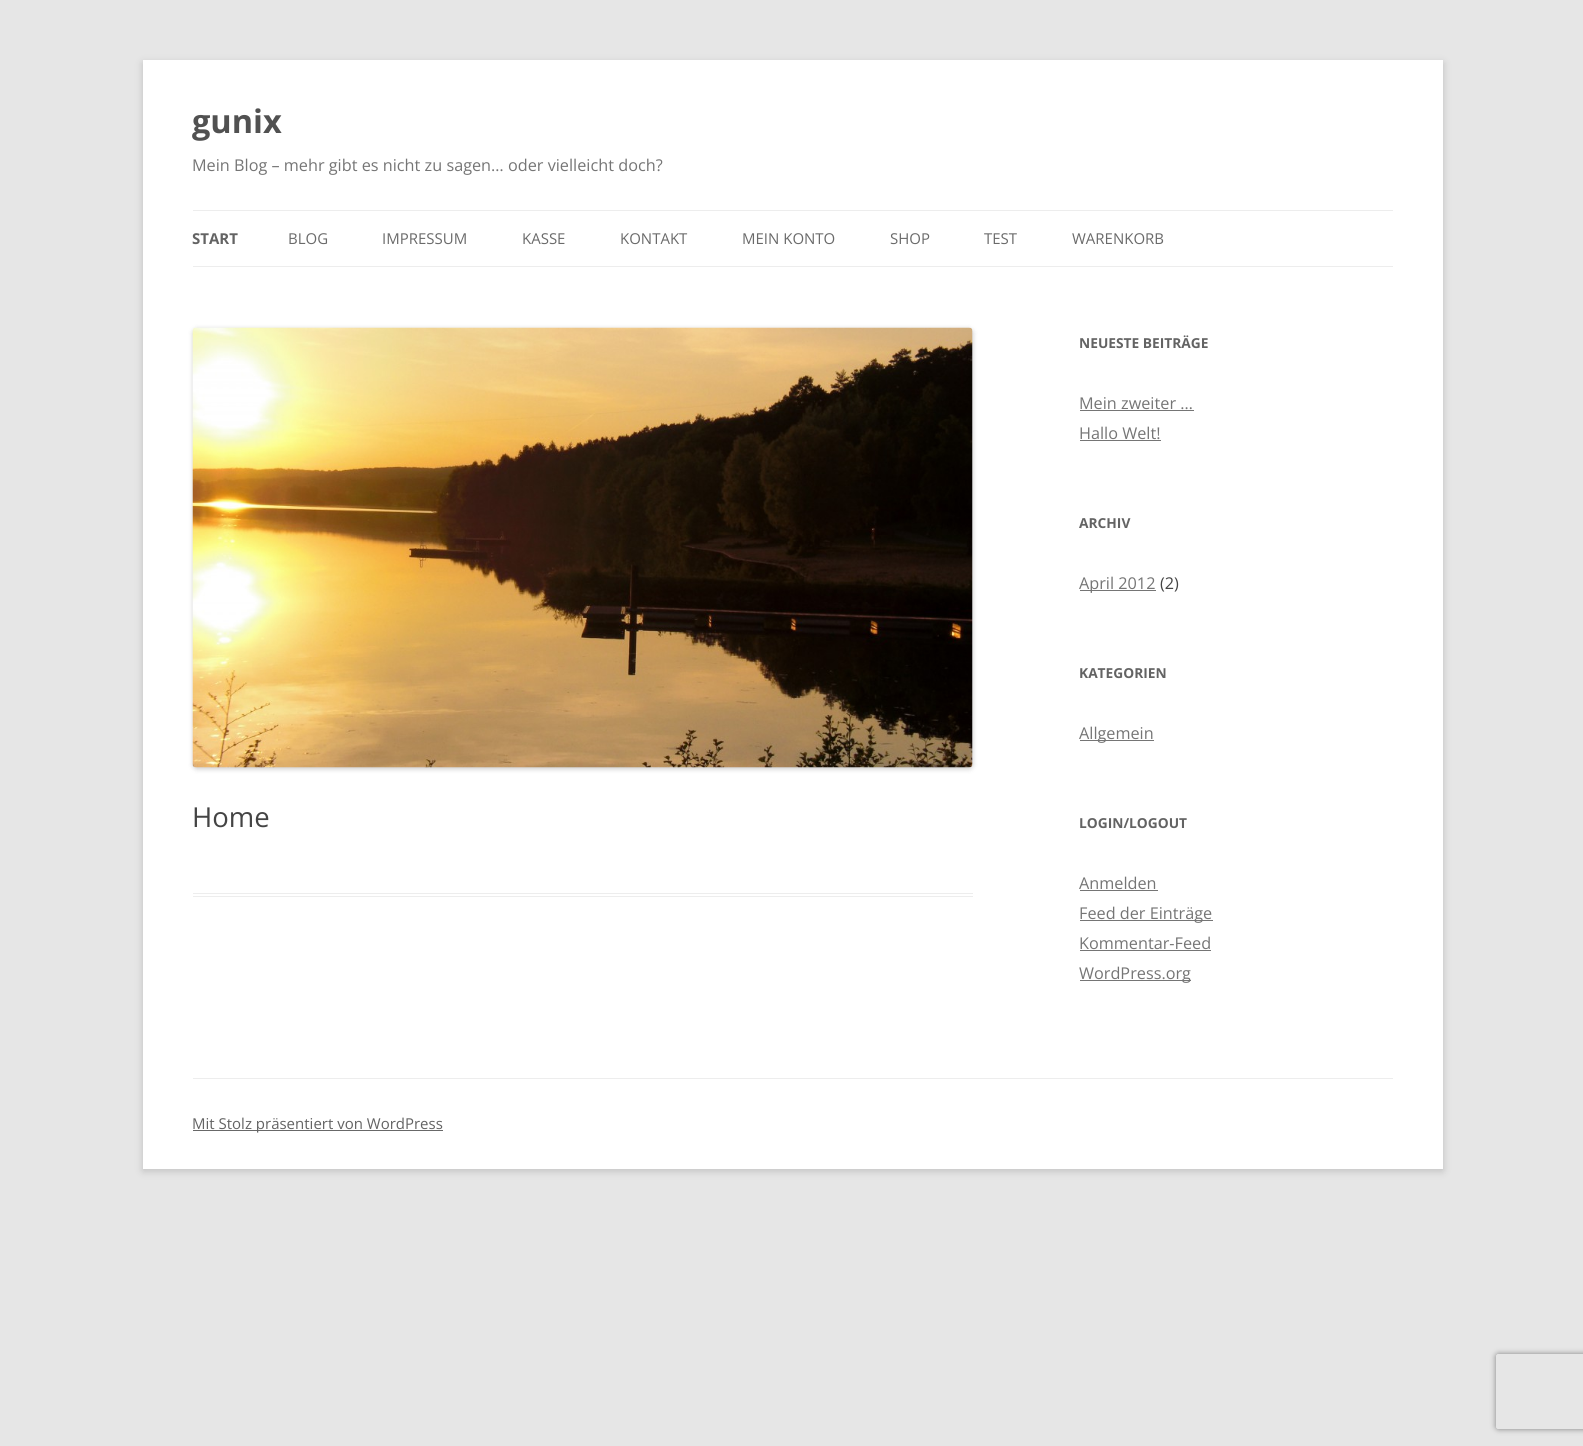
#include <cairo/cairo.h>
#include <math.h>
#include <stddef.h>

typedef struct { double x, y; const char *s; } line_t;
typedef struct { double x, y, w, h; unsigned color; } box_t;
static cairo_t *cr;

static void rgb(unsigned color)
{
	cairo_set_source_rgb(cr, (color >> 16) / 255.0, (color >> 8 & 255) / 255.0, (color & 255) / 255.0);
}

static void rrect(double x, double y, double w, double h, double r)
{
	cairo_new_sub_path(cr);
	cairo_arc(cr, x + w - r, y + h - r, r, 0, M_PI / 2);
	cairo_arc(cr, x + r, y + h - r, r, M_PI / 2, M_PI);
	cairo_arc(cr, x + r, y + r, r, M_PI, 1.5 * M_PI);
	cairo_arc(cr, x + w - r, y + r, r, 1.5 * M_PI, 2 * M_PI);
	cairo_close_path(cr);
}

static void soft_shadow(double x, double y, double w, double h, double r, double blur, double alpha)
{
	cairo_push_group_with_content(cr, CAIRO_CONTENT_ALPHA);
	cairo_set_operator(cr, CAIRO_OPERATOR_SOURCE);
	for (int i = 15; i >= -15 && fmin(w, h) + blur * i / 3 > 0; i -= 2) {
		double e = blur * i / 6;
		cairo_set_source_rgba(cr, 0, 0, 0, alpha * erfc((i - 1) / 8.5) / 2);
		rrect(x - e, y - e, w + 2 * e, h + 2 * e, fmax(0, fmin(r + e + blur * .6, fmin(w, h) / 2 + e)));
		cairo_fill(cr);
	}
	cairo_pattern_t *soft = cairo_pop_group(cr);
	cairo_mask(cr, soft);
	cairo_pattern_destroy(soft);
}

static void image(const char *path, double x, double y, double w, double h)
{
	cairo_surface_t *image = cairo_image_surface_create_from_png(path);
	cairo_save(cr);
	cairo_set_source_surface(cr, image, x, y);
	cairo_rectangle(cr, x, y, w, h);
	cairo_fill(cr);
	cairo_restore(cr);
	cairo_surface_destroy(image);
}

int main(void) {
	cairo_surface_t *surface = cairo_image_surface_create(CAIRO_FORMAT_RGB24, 1583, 1446);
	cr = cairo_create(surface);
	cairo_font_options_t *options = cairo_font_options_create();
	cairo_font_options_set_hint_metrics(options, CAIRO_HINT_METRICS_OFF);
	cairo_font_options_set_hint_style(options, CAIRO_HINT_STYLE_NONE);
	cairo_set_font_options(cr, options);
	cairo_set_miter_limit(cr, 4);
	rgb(0xe6e6e6);
	cairo_paint(cr);
	rgb(0x646464);
	soft_shadow(143, 63, 1300, 1108, 0, 4, 0.3);
	{
		static const box_t items[] = {
			{143, 60, 1300, 1109, 0xffffff},
			{193, 210, 1200, 1, 0xededed},
			{193, 266, 1200, 1, 0xededed},
			{193, 893, 780, 1, 0xededed},
			{193, 896, 780, 1, 0xededed},
		};
		for (size_t i = 0; i < sizeof items / sizeof *items; i++) {
			rgb(items[i].color);
			cairo_rectangle(cr, items[i].x, items[i].y, items[i].w, items[i].h);
			cairo_fill(cr);
		}
	}
	rgb(0x000000);
	soft_shadow(193, 329, 780, 440, 4, 2.5, 0.2);
	image("img/1.png", 192, 327, 781, 441);
	{
		static const box_t items[] = {
			{1080, 410, 114, 1, 0x757575},
			{1080, 440, 81, 1, 0x757575},
			{1080, 590, 76, 1, 0x757575},
			{1080, 740, 74, 1, 0x757575},
			{1080, 890, 78, 1, 0x757575},
			{1080, 920, 133, 1, 0x757575},
			{1080, 950, 131, 1, 0x757575},
			{1080, 980, 111, 1, 0x757575},
			{193, 1078, 1200, 1, 0xededed},
			{193, 1130, 250, 1, 0x686868},
		};
		for (size_t i = 0; i < sizeof items / sizeof *items; i++) {
			rgb(items[i].color);
			cairo_rectangle(cr, items[i].x, items[i].y, items[i].w, items[i].h);
			cairo_fill(cr);
		}
	}
	cairo_save(cr);
	cairo_set_fill_rule(cr, CAIRO_FILL_RULE_EVEN_ODD);
	cairo_new_path(cr);
	cairo_move_to(cr, 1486, 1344);
	cairo_line_to(cr, 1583, 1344);
	cairo_line_to(cr, 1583, 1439);
	cairo_line_to(cr, 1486, 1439);
	cairo_close_path(cr);
	cairo_move_to(cr, 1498.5, 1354);
	cairo_line_to(cr, 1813.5, 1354);
	cairo_curve_to(cr, 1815, 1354, 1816, 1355, 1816, 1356.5);
	cairo_line_to(cr, 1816, 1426.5);
	cairo_curve_to(cr, 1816, 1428, 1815, 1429, 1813.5, 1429);
	cairo_line_to(cr, 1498.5, 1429);
	cairo_curve_to(cr, 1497, 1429, 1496, 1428, 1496, 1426.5);
	cairo_line_to(cr, 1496, 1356.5);
	cairo_curve_to(cr, 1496, 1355, 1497, 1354, 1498.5, 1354);
	cairo_close_path(cr);
	cairo_clip(cr);
	rgb(0x808080);
	soft_shadow(1496, 1354, 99, 75, 2.5, 3, 1);
	cairo_restore(cr);
	cairo_select_font_face(cr, "Open Sans", CAIRO_FONT_SLANT_NORMAL, CAIRO_FONT_WEIGHT_BOLD);
	cairo_set_font_size(cr, 32.5);
	rgb(0x515151);
	cairo_move_to(cr, 192, 133);
	cairo_show_text(cr, "gunix");
	cairo_select_font_face(cr, "Open Sans", CAIRO_FONT_SLANT_NORMAL, CAIRO_FONT_WEIGHT_NORMAL);
	cairo_set_font_size(cr, 16.25);
	rgb(0x757575);
	cairo_move_to(cr, 192, 171);
	cairo_show_text(cr, "Mein Blog – mehr gibt es nicht zu sagen… oder vielleicht doch?");
	cairo_select_font_face(cr, "Open Sans", CAIRO_FONT_SLANT_NORMAL, CAIRO_FONT_WEIGHT_BOLD);
	cairo_set_font_size(cr, 15);
	rgb(0x636363);
	cairo_move_to(cr, 192, 244);
	cairo_show_text(cr, "START");
	cairo_select_font_face(cr, "Open Sans", CAIRO_FONT_SLANT_NORMAL, CAIRO_FONT_WEIGHT_NORMAL);
	rgb(0x6a6a6a);
	{
		static const line_t items[] = {
			{288, 244, "BLOG"},
			{382, 244, "IMPRESSUM"},
			{522, 244, "KASSE"},
			{620, 244, "KONTAKT"},
			{742, 244, "MEIN KONTO"},
			{890, 244, "SHOP"},
			{984, 244, "TEST"},
			{1072, 244, "WARENKORB"},
		};
		for (size_t i = 0; i < sizeof items / sizeof *items; i++) {
			cairo_move_to(cr, items[i].x, items[i].y);
			cairo_show_text(cr, items[i].s);
		}
	}
	cairo_set_font_size(cr, 27.5);
	rgb(0x444444);
	cairo_move_to(cr, 192, 827);
	cairo_show_text(cr, "Home");
	cairo_select_font_face(cr, "Open Sans", CAIRO_FONT_SLANT_NORMAL, CAIRO_FONT_WEIGHT_BOLD);
	cairo_set_font_size(cr, 13.75);
	rgb(0x636363);
	cairo_move_to(cr, 1079, 348);
	cairo_show_text(cr, "NEUESTE BEITRÄGE");
	cairo_select_font_face(cr, "Open Sans", CAIRO_FONT_SLANT_NORMAL, CAIRO_FONT_WEIGHT_NORMAL);
	cairo_set_font_size(cr, 16.25);
	rgb(0x757575);
	cairo_move_to(cr, 1079, 409);
	cairo_show_text(cr, "Mein zweiter …");
	cairo_move_to(cr, 1079, 439);
	cairo_show_text(cr, "Hallo Welt!");
	cairo_select_font_face(cr, "Open Sans", CAIRO_FONT_SLANT_NORMAL, CAIRO_FONT_WEIGHT_BOLD);
	cairo_set_font_size(cr, 13.75);
	rgb(0x636363);
	cairo_move_to(cr, 1079, 528);
	cairo_show_text(cr, "ARCHIV");
	cairo_select_font_face(cr, "Open Sans", CAIRO_FONT_SLANT_NORMAL, CAIRO_FONT_WEIGHT_NORMAL);
	cairo_set_font_size(cr, 16.25);
	rgb(0x757575);
	cairo_move_to(cr, 1079, 589);
	cairo_show_text(cr, "April 2012");
	rgb(0x444444);
	cairo_move_to(cr, 1160, 589);
	cairo_show_text(cr, "(2)");
	cairo_select_font_face(cr, "Open Sans", CAIRO_FONT_SLANT_NORMAL, CAIRO_FONT_WEIGHT_BOLD);
	cairo_set_font_size(cr, 13.75);
	rgb(0x636363);
	cairo_move_to(cr, 1079, 678);
	cairo_show_text(cr, "KATEGORIEN");
	cairo_select_font_face(cr, "Open Sans", CAIRO_FONT_SLANT_NORMAL, CAIRO_FONT_WEIGHT_NORMAL);
	cairo_set_font_size(cr, 16.25);
	rgb(0x757575);
	cairo_move_to(cr, 1079, 739);
	cairo_show_text(cr, "Allgemein");
	cairo_select_font_face(cr, "Open Sans", CAIRO_FONT_SLANT_NORMAL, CAIRO_FONT_WEIGHT_BOLD);
	cairo_set_font_size(cr, 13.75);
	rgb(0x636363);
	cairo_move_to(cr, 1079, 828);
	cairo_show_text(cr, "LOGIN/LOGOUT");
	cairo_select_font_face(cr, "Open Sans", CAIRO_FONT_SLANT_NORMAL, CAIRO_FONT_WEIGHT_NORMAL);
	cairo_set_font_size(cr, 16.25);
	rgb(0x757575);
	{
		static const line_t items[] = {
			{1079, 889, "Anmelden"},
			{1079, 919, "Feed der Einträge"},
			{1079, 949, "Kommentar-Feed"},
			{1079, 979, "WordPress.org"},
		};
		for (size_t i = 0; i < sizeof items / sizeof *items; i++) {
			cairo_move_to(cr, items[i].x, items[i].y);
			cairo_show_text(cr, items[i].s);
		}
	}
	cairo_set_font_size(cr, 15);
	rgb(0x636363);
	cairo_move_to(cr, 192, 1129);
	cairo_show_text(cr, "Mit Stolz präsentiert von WordPress");
	cairo_surface_write_to_png(surface, "page.png");
	cairo_font_options_destroy(options);
	cairo_destroy(cr);
	cairo_surface_destroy(surface);
	return 0;
}
